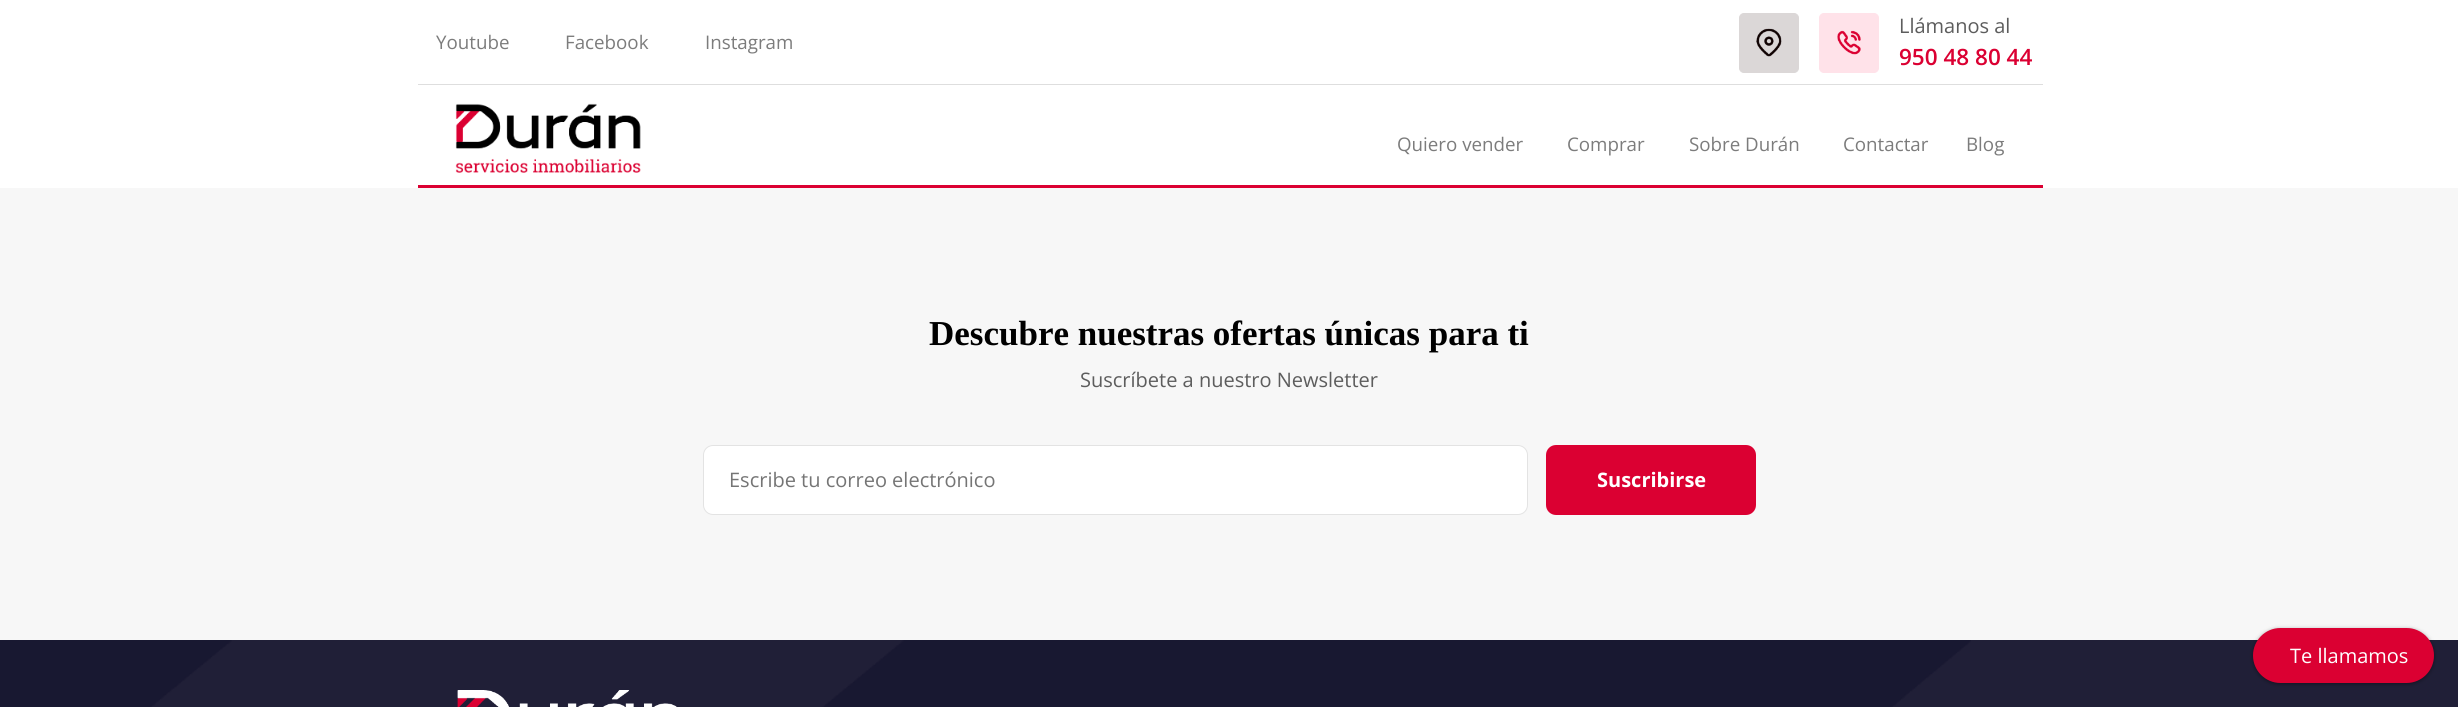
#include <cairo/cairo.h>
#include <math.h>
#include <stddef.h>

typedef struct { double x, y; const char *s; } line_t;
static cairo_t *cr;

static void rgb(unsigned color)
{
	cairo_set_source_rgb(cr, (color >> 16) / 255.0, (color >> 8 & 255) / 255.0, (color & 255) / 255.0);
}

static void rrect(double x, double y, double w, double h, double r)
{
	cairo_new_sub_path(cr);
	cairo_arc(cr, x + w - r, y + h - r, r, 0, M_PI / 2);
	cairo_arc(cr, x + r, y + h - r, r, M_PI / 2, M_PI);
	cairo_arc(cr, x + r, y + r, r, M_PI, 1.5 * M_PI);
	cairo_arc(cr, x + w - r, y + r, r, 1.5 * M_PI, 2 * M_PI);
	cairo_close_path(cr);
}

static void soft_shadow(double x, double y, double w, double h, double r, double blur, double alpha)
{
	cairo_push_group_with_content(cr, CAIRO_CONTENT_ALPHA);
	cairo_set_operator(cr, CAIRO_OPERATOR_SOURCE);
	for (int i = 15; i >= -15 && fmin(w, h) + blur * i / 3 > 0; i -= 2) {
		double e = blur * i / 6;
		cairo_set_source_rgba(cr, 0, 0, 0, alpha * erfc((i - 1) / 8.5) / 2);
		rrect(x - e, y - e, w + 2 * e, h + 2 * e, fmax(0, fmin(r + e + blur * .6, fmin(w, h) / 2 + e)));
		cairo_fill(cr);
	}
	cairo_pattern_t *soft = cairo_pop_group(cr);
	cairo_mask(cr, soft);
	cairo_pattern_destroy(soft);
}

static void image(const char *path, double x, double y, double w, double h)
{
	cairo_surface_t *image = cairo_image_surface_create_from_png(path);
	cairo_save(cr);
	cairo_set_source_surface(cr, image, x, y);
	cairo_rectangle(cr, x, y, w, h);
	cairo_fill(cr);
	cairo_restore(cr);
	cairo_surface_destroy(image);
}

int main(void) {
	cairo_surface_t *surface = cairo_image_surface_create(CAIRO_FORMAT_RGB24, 2458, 707);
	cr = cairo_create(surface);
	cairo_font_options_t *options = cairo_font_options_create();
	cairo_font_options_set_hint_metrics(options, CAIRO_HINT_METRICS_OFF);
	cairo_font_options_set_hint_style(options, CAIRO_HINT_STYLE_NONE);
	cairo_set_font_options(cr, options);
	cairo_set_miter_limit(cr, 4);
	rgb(0xffffff);
	cairo_paint(cr);
	rgb(0xdedede);
	cairo_rectangle(cr, 418, 84, 1625, 1);
	cairo_fill(cr);
	rgb(0xdbd7d7);
	rrect(1739.5, 13.5, 59, 59, 4.5);
	cairo_fill_preserve(cr);
	cairo_set_line_width(cr, 1);
	cairo_stroke(cr);
	image("img/1.png", 1756, 28, 26, 29);
	rgb(0xffe2e9);
	rrect(1819.5, 13.5, 59, 59, 4.5);
	cairo_fill_preserve(cr);
	cairo_stroke(cr);
	image("img/2.png", 1837, 30, 24, 25);
	rgb(0xdb0032);
	cairo_rectangle(cr, 418, 185, 1625, 3);
	cairo_fill(cr);
	image("img/3.png", 455, 103, 186, 70);
	rgb(0xf7f7f7);
	cairo_rectangle(cr, 0, 188, 2458, 452);
	cairo_fill(cr);
	rgb(0xffffff);
	rrect(703.5, 445.5, 824, 69, 9.5);
	cairo_fill_preserve(cr);
	rgb(0xe3e3e3);
	cairo_stroke(cr);
	rgb(0xdb0032);
	rrect(1546, 445, 210, 70, 10);
	cairo_fill(cr);
	rgb(0x201f37);
	cairo_rectangle(cr, 0, 640, 2458, 67);
	cairo_fill(cr);
	image("img/4.png", 0, 640, 1971, 67);
	image("img/5.png", 457, 690, 220, 17);
	rgb(0x000000);
	soft_shadow(2253, 629, 181, 55, 27.5, 2, 0.4);
	rgb(0xdb0032);
	rrect(2253, 628, 181, 55, 27.5);
	cairo_fill(cr);
	cairo_select_font_face(cr, "Open Sans", CAIRO_FONT_SLANT_NORMAL, CAIRO_FONT_WEIGHT_NORMAL);
	cairo_set_font_size(cr, 18.75);
	rgb(0x7c7c7c);
	{
		static const line_t items[] = {
			{436, 49, "Youtube"},
			{565, 49, "Facebook"},
			{705, 49, "Instagram"},
		};
		for (size_t i = 0; i < sizeof items / sizeof *items; i++) {
			cairo_move_to(cr, items[i].x, items[i].y);
			cairo_show_text(cr, items[i].s);
		}
	}
	cairo_set_font_size(cr, 20);
	rgb(0x5d5d5d);
	cairo_move_to(cr, 1899, 33);
	cairo_show_text(cr, "Llámanos al");
	cairo_select_font_face(cr, "Open Sans SemiBold", CAIRO_FONT_SLANT_NORMAL, CAIRO_FONT_WEIGHT_NORMAL);
	cairo_set_font_size(cr, 22.5);
	rgb(0xdb0032);
	cairo_move_to(cr, 1899, 65);
	cairo_show_text(cr, "950 48 80 44");
	cairo_select_font_face(cr, "Open Sans", CAIRO_FONT_SLANT_NORMAL, CAIRO_FONT_WEIGHT_NORMAL);
	cairo_set_font_size(cr, 18.75);
	rgb(0x7c7c7c);
	{
		static const line_t items[] = {
			{1397, 151, "Quiero vender"},
			{1567, 151, "Comprar"},
			{1689, 151, "Sobre Durán"},
			{1843, 151, "Contactar"},
			{1966, 151, "Blog"},
		};
		for (size_t i = 0; i < sizeof items / sizeof *items; i++) {
			cairo_move_to(cr, items[i].x, items[i].y);
			cairo_show_text(cr, items[i].s);
		}
	}
	cairo_select_font_face(cr, "Liberation Serif", CAIRO_FONT_SLANT_NORMAL, CAIRO_FONT_WEIGHT_BOLD);
	cairo_set_font_size(cr, 35);
	rgb(0x000000);
	cairo_move_to(cr, 929, 345);
	cairo_show_text(cr, "Descubre nuestras ofertas únicas para ti");
	cairo_select_font_face(cr, "Open Sans", CAIRO_FONT_SLANT_NORMAL, CAIRO_FONT_WEIGHT_NORMAL);
	cairo_set_font_size(cr, 20);
	rgb(0x5d5d5d);
	cairo_move_to(cr, 1080, 387);
	cairo_show_text(cr, "Suscríbete a nuestro Newsletter");
	rgb(0x757575);
	cairo_move_to(cr, 729, 487);
	cairo_show_text(cr, "Escribe tu correo electrónico");
	cairo_select_font_face(cr, "Open Sans", CAIRO_FONT_SLANT_NORMAL, CAIRO_FONT_WEIGHT_BOLD);
	rgb(0xffffff);
	cairo_move_to(cr, 1597, 487);
	cairo_show_text(cr, "Suscribirse");
	cairo_select_font_face(cr, "Open Sans", CAIRO_FONT_SLANT_NORMAL, CAIRO_FONT_WEIGHT_NORMAL);
	cairo_move_to(cr, 2290, 663);
	cairo_show_text(cr, "Te llamamos");
	cairo_surface_write_to_png(surface, "page.png");
	cairo_font_options_destroy(options);
	cairo_destroy(cr);
	cairo_surface_destroy(surface);
	return 0;
}
